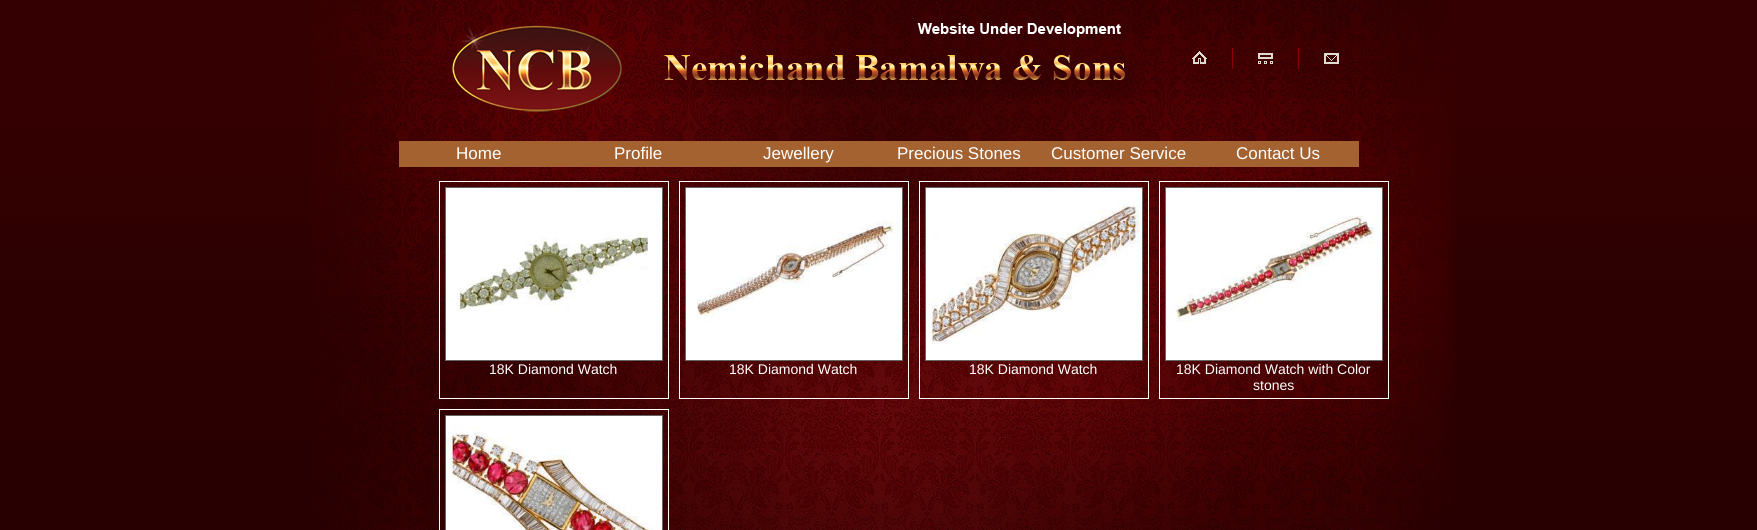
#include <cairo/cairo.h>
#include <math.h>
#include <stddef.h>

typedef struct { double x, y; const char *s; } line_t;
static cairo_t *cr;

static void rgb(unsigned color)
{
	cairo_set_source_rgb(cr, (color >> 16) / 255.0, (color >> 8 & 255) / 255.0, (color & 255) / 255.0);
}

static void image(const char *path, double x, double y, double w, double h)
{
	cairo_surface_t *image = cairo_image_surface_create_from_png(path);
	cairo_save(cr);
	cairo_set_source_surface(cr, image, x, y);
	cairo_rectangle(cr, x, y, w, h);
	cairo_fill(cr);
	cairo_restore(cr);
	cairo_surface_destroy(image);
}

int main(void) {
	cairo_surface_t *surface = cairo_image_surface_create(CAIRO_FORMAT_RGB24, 1757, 530);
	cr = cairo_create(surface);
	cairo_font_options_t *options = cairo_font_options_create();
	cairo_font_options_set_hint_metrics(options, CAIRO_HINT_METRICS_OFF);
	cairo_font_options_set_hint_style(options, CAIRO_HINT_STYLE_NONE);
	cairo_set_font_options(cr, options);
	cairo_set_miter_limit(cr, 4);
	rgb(0xffffff);
	cairo_paint(cr);
	image("img/1.png", 0, 0, 1757, 530);
	image("img/2.png", 311, 0, 1145, 530);
	image("img/3.png", 452, 23, 683, 89);
	image("img/4.png", 1232, 48, 1, 21);
	image("img/5.png", 1192, 51, 15, 13);
	image("img/4.png", 1298, 48, 1, 21);
	image("img/6.png", 1258, 53, 15, 11);
	image("img/7.png", 1324, 53, 15, 11);
	rgb(0xa56231);
	cairo_rectangle(cr, 399, 141, 960, 26);
	cairo_fill(cr);
	cairo_rectangle(cr, 439.5, 181.5, 229, 217);
	rgb(0xffffff);
	cairo_set_line_width(cr, 1);
	cairo_stroke(cr);
	cairo_rectangle(cr, 445.5, 187.5, 217, 173);
	rgb(0x666666);
	cairo_stroke(cr);
	image("img/8.png", 446, 188, 216, 172);
	cairo_rectangle(cr, 679.5, 181.5, 229, 217);
	rgb(0xffffff);
	cairo_stroke(cr);
	cairo_rectangle(cr, 685.5, 187.5, 217, 173);
	rgb(0x666666);
	cairo_stroke(cr);
	image("img/9.png", 686, 188, 216, 172);
	cairo_rectangle(cr, 919.5, 181.5, 229, 217);
	rgb(0xffffff);
	cairo_stroke(cr);
	cairo_rectangle(cr, 925.5, 187.5, 217, 173);
	rgb(0x666666);
	cairo_stroke(cr);
	image("img/10.png", 926, 188, 216, 172);
	cairo_rectangle(cr, 1159.5, 181.5, 229, 217);
	rgb(0xffffff);
	cairo_stroke(cr);
	cairo_rectangle(cr, 1165.5, 187.5, 217, 173);
	rgb(0x666666);
	cairo_stroke(cr);
	image("img/11.png", 1166, 188, 216, 172);
	cairo_rectangle(cr, 439.5, 409.5, 229, 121);
	rgb(0xffffff);
	cairo_stroke(cr);
	cairo_rectangle(cr, 445.5, 415.5, 217, 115);
	rgb(0x666666);
	cairo_stroke(cr);
	image("img/12.png", 446, 416, 216, 114);
	cairo_select_font_face(cr, "Liberation Sans", CAIRO_FONT_SLANT_NORMAL, CAIRO_FONT_WEIGHT_NORMAL);
	cairo_set_font_size(cr, 17);
	rgb(0xffffff);
	{
		static const line_t items[] = {
			{456, 159, "Home"},
			{614, 159, "Profile"},
			{763, 159, "Jewellery"},
			{897, 159, "Precious Stones"},
			{1051, 159, "Customer Service"},
			{1236, 159, "Contact Us"},
		};
		for (size_t i = 0; i < sizeof items / sizeof *items; i++) {
			cairo_move_to(cr, items[i].x, items[i].y);
			cairo_show_text(cr, items[i].s);
		}
	}
	cairo_set_font_size(cr, 14);
	{
		static const line_t items[] = {
			{489, 374, "18K Diamond Watch"},
			{729, 374, "18K Diamond Watch"},
			{969, 374, "18K Diamond Watch"},
			{1176, 374, "18K Diamond Watch with Color"},
			{1253, 390, "stones"},
		};
		for (size_t i = 0; i < sizeof items / sizeof *items; i++) {
			cairo_move_to(cr, items[i].x, items[i].y);
			cairo_show_text(cr, items[i].s);
		}
	}
	cairo_surface_write_to_png(surface, "page.png");
	cairo_font_options_destroy(options);
	cairo_destroy(cr);
	cairo_surface_destroy(surface);
	return 0;
}
